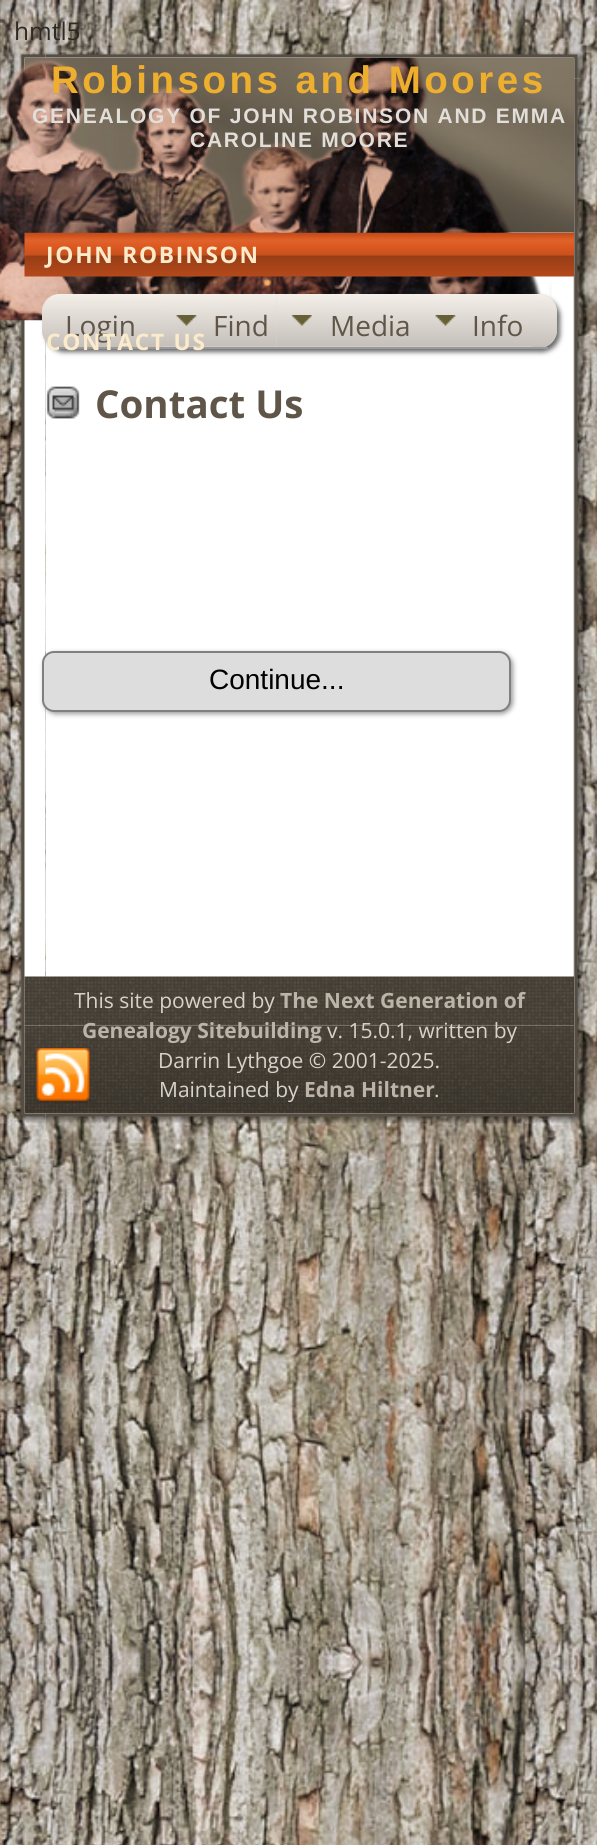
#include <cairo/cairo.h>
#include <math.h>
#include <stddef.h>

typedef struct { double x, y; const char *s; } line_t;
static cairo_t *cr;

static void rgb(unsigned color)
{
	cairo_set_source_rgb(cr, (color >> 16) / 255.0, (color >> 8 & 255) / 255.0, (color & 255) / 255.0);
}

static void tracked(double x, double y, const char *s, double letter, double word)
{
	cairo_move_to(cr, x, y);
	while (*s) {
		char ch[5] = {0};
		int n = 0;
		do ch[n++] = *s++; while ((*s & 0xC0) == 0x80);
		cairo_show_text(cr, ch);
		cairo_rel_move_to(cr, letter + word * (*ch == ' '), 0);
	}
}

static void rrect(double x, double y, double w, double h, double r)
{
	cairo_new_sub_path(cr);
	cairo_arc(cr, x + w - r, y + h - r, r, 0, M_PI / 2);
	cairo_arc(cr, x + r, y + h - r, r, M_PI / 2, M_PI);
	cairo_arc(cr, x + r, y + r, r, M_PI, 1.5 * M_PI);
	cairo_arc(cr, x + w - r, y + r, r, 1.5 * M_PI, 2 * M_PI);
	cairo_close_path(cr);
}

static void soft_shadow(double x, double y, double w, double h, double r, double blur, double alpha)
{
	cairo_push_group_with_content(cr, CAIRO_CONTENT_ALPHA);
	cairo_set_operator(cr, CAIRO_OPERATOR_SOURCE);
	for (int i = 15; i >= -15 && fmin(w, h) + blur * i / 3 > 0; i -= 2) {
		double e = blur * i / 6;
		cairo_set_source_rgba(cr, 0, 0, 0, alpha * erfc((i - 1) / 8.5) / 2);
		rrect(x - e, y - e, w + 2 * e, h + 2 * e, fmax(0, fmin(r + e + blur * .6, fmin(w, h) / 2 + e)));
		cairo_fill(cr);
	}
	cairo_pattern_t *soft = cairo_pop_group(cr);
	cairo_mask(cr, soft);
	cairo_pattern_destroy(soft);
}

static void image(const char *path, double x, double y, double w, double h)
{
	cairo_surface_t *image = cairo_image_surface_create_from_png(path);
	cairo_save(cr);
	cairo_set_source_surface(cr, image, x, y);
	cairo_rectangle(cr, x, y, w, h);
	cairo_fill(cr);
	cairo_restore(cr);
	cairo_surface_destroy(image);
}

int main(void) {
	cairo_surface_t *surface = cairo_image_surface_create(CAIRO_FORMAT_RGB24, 597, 1845);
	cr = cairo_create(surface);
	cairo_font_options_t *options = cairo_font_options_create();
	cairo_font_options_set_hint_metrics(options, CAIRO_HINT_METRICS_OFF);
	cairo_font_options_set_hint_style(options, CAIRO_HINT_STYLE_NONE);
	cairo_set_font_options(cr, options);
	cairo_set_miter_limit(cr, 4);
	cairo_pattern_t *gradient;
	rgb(0xffffff);
	cairo_paint(cr);
	image("img/1.png", 0, 0, 597, 1845);
	image("img/2.png", 19, 52, 27, 27);
	image("img/3.png", 45, 52, 508, 6);
	image("img/4.png", 553, 52, 31, 27);
	image("img/15.png", 19, 79, 27, 1013);
	rgb(0xffffff);
	cairo_rectangle(cr, 46, 232, 507, 794);
	cairo_fill(cr);
	image("img/16.png", 553, 79, 32, 1013);
	image("img/6.png", 24, 58, 550, 175);
	image("img/5.png", 0, 57, 552, 264);
	image("img/7.png", 24, 232, 550, 45);
	rgb(0x666666);
	soft_shadow(46, 298, 514, 54, 18, 2.5, 1);
	rgb(0xdcd7d1);
	rrect(42, 294, 515, 54, 18);
	cairo_fill(cr);
	cairo_save(cr);
	rrect(42, 294, 515, 54, 18);
	cairo_clip(cr);
	gradient = cairo_pattern_create_linear(299, 294, 299, 347);
	cairo_pattern_add_color_stop_rgba(gradient, 0, 0.961, 0.937, 0.914, 1);
	cairo_pattern_add_color_stop_rgba(gradient, 1, 0.773, 0.749, 0.725, 1);
	cairo_set_source(cr, gradient);
	cairo_pattern_destroy(gradient);
	cairo_new_path(cr);
	cairo_move_to(cr, 60, 294);
	cairo_line_to(cr, 539, 294);
	cairo_curve_to(cr, 549, 294, 557, 302, 557, 312);
	cairo_line_to(cr, 557, 347);
	cairo_line_to(cr, 42, 347);
	cairo_line_to(cr, 42, 312);
	cairo_curve_to(cr, 42, 302, 50, 294, 60, 294);
	cairo_close_path(cr);
	cairo_fill(cr);
	cairo_restore(cr);
	rgb(0x999999);
	cairo_rectangle(cr, 51, 347, 497, 2);
	cairo_fill(cr);
	rgb(0xdcd7d1);
	cairo_rectangle(cr, 161, 294, 116, 53);
	cairo_fill(cr);
	image("img/8.png", 161, 294, 116, 53);
	cairo_rectangle(cr, 277, 346, 255, 1);
	cairo_fill(cr);
	image("img/9.png", 276, 294, 144, 53);
	image("img/10.png", 420, 294, 112, 53);
	image("img/11.png", 46, 386, 34, 33);
	rgb(0x999999);
	soft_shadow(44, 653, 469, 61, 12, 2.5, 1);
	rgb(0xdddddd);
	rrect(43, 652, 467, 59, 11);
	cairo_fill_preserve(cr);
	rgb(0x808080);
	cairo_stroke(cr);
	image("img/12.png", 24, 976, 550, 50);
	image("img/17.png", 19, 1092, 27, 32);
	image("img/19.png", 553, 1092, 31, 32);
	image("img/14.png", 24, 1025, 550, 88);
	image("img/13.png", 35, 1048, 56, 55);
	image("img/18.png", 45, 1113, 508, 11);
	cairo_select_font_face(cr, "Open Sans", CAIRO_FONT_SLANT_NORMAL, CAIRO_FONT_WEIGHT_NORMAL);
	cairo_set_font_size(cr, 24.5);
	rgb(0x2e2a23);
	cairo_move_to(cr, 14, 40);
	cairo_show_text(cr, "hmtl5");
	cairo_select_font_face(cr, "Liberation Sans", CAIRO_FONT_SLANT_NORMAL, CAIRO_FONT_WEIGHT_BOLD);
	cairo_set_font_size(cr, 38.5);
	rgb(0xefaf2e);
	tracked(51, 93, "Robinsons and Moores", 3.5, 0);
	cairo_set_font_size(cr, 21);
	rgb(0xe2dfda);
	tracked(32, 123, "GENEALOGY OF JOHN ROBINSON AND EMMA", 1.75, 0);
	tracked(190, 147, "CAROLINE MOORE", 1.75, 0);
	cairo_select_font_face(cr, "Open Sans", CAIRO_FONT_SLANT_NORMAL, CAIRO_FONT_WEIGHT_BOLD);
	cairo_set_font_size(cr, 22.75);
	rgb(0xfbebcb);
	tracked(46, 263, "JOHN ROBINSON", 1.75, 0);
	cairo_select_font_face(cr, "Open Sans", CAIRO_FONT_SLANT_NORMAL, CAIRO_FONT_WEIGHT_NORMAL);
	cairo_set_font_size(cr, 28);
	rgb(0x5f5649);
	cairo_move_to(cr, 65, 336);
	cairo_show_text(cr, "Login");
	cairo_select_font_face(cr, "Open Sans", CAIRO_FONT_SLANT_NORMAL, CAIRO_FONT_WEIGHT_BOLD);
	cairo_set_font_size(cr, 22.75);
	rgb(0xfbebcb);
	tracked(46, 350, "CONTACT US", 1.75, 0);
	cairo_select_font_face(cr, "Open Sans", CAIRO_FONT_SLANT_NORMAL, CAIRO_FONT_WEIGHT_NORMAL);
	cairo_set_font_size(cr, 28);
	rgb(0x5f5649);
	{
		static const line_t items[] = {
			{213, 336, "Find"},
			{330, 336, "Media"},
			{472, 336, "Info"},
		};
		for (size_t i = 0; i < sizeof items / sizeof *items; i++) {
			cairo_move_to(cr, items[i].x, items[i].y);
			cairo_show_text(cr, items[i].s);
		}
	}
	cairo_select_font_face(cr, "Open Sans", CAIRO_FONT_SLANT_NORMAL, CAIRO_FONT_WEIGHT_BOLD);
	cairo_set_font_size(cr, 38.5);
	cairo_move_to(cr, 95, 418);
	cairo_show_text(cr, "Contact Us");
	cairo_select_font_face(cr, "Liberation Sans", CAIRO_FONT_SLANT_NORMAL, CAIRO_FONT_WEIGHT_NORMAL);
	cairo_set_font_size(cr, 28);
	rgb(0x000000);
	cairo_move_to(cr, 209, 689);
	cairo_show_text(cr, "Continue...");
	cairo_select_font_face(cr, "Open Sans", CAIRO_FONT_SLANT_NORMAL, CAIRO_FONT_WEIGHT_NORMAL);
	cairo_set_font_size(cr, 21);
	rgb(0xd7d2cb);
	cairo_move_to(cr, 74, 1008);
	cairo_show_text(cr, "This site powered by");
	cairo_select_font_face(cr, "Open Sans", CAIRO_FONT_SLANT_NORMAL, CAIRO_FONT_WEIGHT_BOLD);
	rgb(0xbcb4a9);
	cairo_move_to(cr, 280, 1008);
	cairo_show_text(cr, "The Next Generation of");
	cairo_move_to(cr, 82, 1038);
	cairo_show_text(cr, "Genealogy Sitebuilding");
	cairo_select_font_face(cr, "Open Sans", CAIRO_FONT_SLANT_NORMAL, CAIRO_FONT_WEIGHT_NORMAL);
	rgb(0xd7d2cb);
	{
		static const line_t items[] = {
			{327, 1038, "v. 15.0.1, written by"},
			{158, 1068, "Darrin Lythgoe © 2001-2025."},
			{159, 1097, "Maintained by"},
		};
		for (size_t i = 0; i < sizeof items / sizeof *items; i++) {
			cairo_move_to(cr, items[i].x, items[i].y);
			cairo_show_text(cr, items[i].s);
		}
	}
	cairo_select_font_face(cr, "Open Sans", CAIRO_FONT_SLANT_NORMAL, CAIRO_FONT_WEIGHT_BOLD);
	rgb(0xbcb4a9);
	cairo_move_to(cr, 304, 1097);
	cairo_show_text(cr, "Edna Hiltner");
	cairo_select_font_face(cr, "Open Sans", CAIRO_FONT_SLANT_NORMAL, CAIRO_FONT_WEIGHT_NORMAL);
	rgb(0xd7d2cb);
	cairo_move_to(cr, 434, 1097);
	cairo_show_text(cr, ".");
	cairo_surface_write_to_png(surface, "page.png");
	cairo_font_options_destroy(options);
	cairo_destroy(cr);
	cairo_surface_destroy(surface);
	return 0;
}
